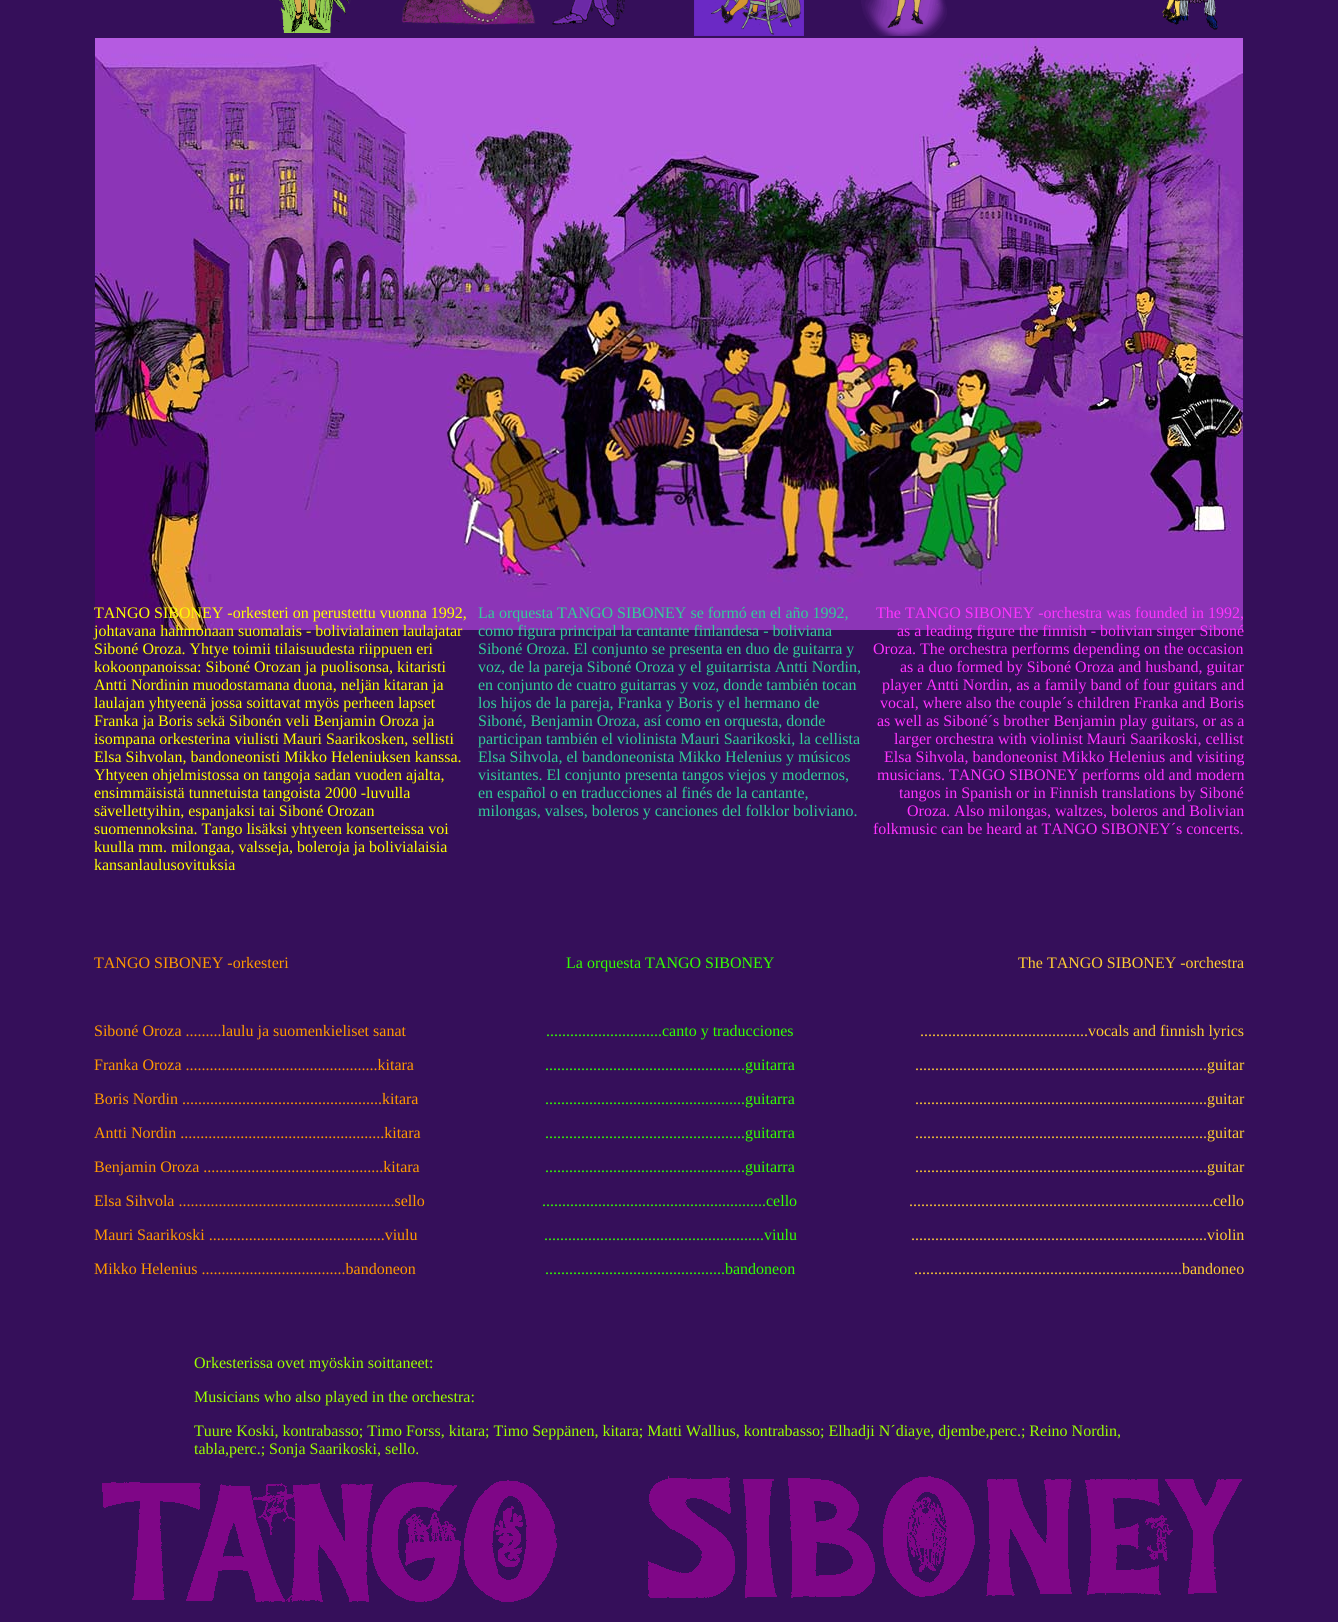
#include <cairo/cairo.h>
#include <math.h>
#include <stddef.h>

typedef struct { double x, y; const char *s; } line_t;
static cairo_t *cr;

static void rgb(unsigned color)
{
	cairo_set_source_rgb(cr, (color >> 16) / 255.0, (color >> 8 & 255) / 255.0, (color & 255) / 255.0);
}

static void image(const char *path, double x, double y, double w, double h)
{
	cairo_surface_t *image = cairo_image_surface_create_from_png(path);
	cairo_save(cr);
	cairo_set_source_surface(cr, image, x, y);
	cairo_rectangle(cr, x, y, w, h);
	cairo_fill(cr);
	cairo_restore(cr);
	cairo_surface_destroy(image);
}

int main(void) {
	cairo_surface_t *surface = cairo_image_surface_create(CAIRO_FORMAT_RGB24, 1338, 1622);
	cr = cairo_create(surface);
	cairo_font_options_t *options = cairo_font_options_create();
	cairo_font_options_set_hint_metrics(options, CAIRO_HINT_METRICS_OFF);
	cairo_font_options_set_hint_style(options, CAIRO_HINT_STYLE_NONE);
	cairo_set_font_options(cr, options);
	cairo_set_miter_limit(cr, 4);
	rgb(0x350f5a);
	cairo_paint(cr);
	image("img/1.png", 279, 0, 72, 33);
	image("img/2.png", 401, 0, 135, 25);
	image("img/3.png", 552, 0, 73, 28);
	image("img/4.png", 694, 0, 110, 36);
	image("img/5.png", 861, 0, 86, 36);
	image("img/6.png", 1162, 0, 56, 30);
	image("img/7.png", 95, 38, 1148, 592);
	image("img/8.png", 102, 1476, 1140, 126);
	cairo_select_font_face(cr, "Liberation Serif", CAIRO_FONT_SLANT_NORMAL, CAIRO_FONT_WEIGHT_NORMAL);
	cairo_set_font_size(cr, 16);
	rgb(0xffff00);
	{
		static const line_t items[] = {
			{94, 618, "TANGO SIBONEY -orkesteri on perustettu vuonna 1992,"},
			{94, 636, "johtavana hahmonaan suomalais - bolivialainen laulajatar"},
			{94, 654, "Siboné Oroza. Yhtye toimii tilaisuudesta riippuen eri"},
			{94, 672, "kokoonpanoissa: Siboné Orozan ja puolisonsa, kitaristi"},
			{94, 690, "Antti Nordinin muodostamana duona, neljän kitaran ja"},
			{94, 708, "laulajan yhtyeenä jossa soittavat myös perheen lapset"},
			{94, 726, "Franka ja Boris sekä Sibonén veli Benjamin Oroza ja"},
			{94, 744, "isompana orkesterina viulisti Mauri Saarikosken, sellisti"},
			{94, 762, "Elsa Sihvolan, bandoneonisti Mikko Heleniuksen kanssa."},
			{94, 780, "Yhtyeen ohjelmistossa on tangoja sadan vuoden ajalta,"},
			{94, 798, "ensimmäisistä tunnetuista tangoista 2000 -luvulla"},
			{94, 816, "sävellettyihin, espanjaksi tai Siboné Orozan"},
			{94, 834, "suomennoksina. Tango lisäksi yhtyeen konserteissa voi"},
			{94, 852, "kuulla mm. milongaa, valsseja, boleroja ja bolivialaisia"},
			{94, 870, "kansanlaulusovituksia"},
		};
		for (size_t i = 0; i < sizeof items / sizeof *items; i++) {
			cairo_move_to(cr, items[i].x, items[i].y);
			cairo_show_text(cr, items[i].s);
		}
	}
	rgb(0x33cc99);
	{
		static const line_t items[] = {
			{478, 618, "La orquesta TANGO SIBONEY se formó en el año 1992,"},
			{478, 636, "como figura principal la cantante finlandesa - boliviana"},
			{478, 654, "Siboné Oroza. El conjunto se presenta en duo de guitarra y"},
			{478, 672, "voz, de la pareja Siboné Oroza y el guitarrista Antti Nordin,"},
			{478, 690, "en conjunto de cuatro guitarras y voz, donde también tocan"},
			{478, 708, "los hijos de la pareja, Franka y Boris y el hermano de"},
			{478, 726, "Siboné, Benjamin Oroza, así como en orquesta, donde"},
			{478, 744, "participan también el violinista Mauri Saarikoski, la cellista"},
			{478, 762, "Elsa Sihvola, el bandoneonista Mikko Helenius y músicos"},
			{478, 780, "visitantes. El conjunto presenta tangos viejos y modernos,"},
			{478, 798, "en español o en traducciones al finés de la cantante,"},
			{478, 816, "milongas, valses, boleros y canciones del folklor boliviano."},
		};
		for (size_t i = 0; i < sizeof items / sizeof *items; i++) {
			cairo_move_to(cr, items[i].x, items[i].y);
			cairo_show_text(cr, items[i].s);
		}
	}
	rgb(0xff33ff);
	{
		static const line_t items[] = {
			{876, 618, "The TANGO SIBONEY -orchestra was founded in 1992,"},
			{897, 636, "as a leading figure the finnish - bolivian singer Siboné"},
			{873, 654, "Oroza. The orchestra performs depending on the occasion"},
			{900, 672, "as a duo formed by Siboné Oroza and husband, guitar"},
			{882, 690, "player Antti Nordin, as a family band of four guitars and"},
			{880, 708, "vocal, where also the couple´s children Franka and Boris"},
			{877, 726, "as well as Siboné´s brother Benjamin play guitars, or as a"},
			{894, 744, "larger orchestra with violinist Mauri Saarikoski, cellist"},
			{884, 762, "Elsa Sihvola, bandoneonist Mikko Helenius and visiting"},
			{877, 780, "musicians. TANGO SIBONEY performs old and modern"},
			{899, 798, "tangos in Spanish or in Finnish translations by Siboné"},
			{907, 816, "Oroza. Also milongas, waltzes, boleros and Bolivian"},
			{873, 834, "folkmusic can be heard at TANGO SIBONEY´s concerts."},
		};
		for (size_t i = 0; i < sizeof items / sizeof *items; i++) {
			cairo_move_to(cr, items[i].x, items[i].y);
			cairo_show_text(cr, items[i].s);
		}
	}
	rgb(0xff9900);
	{
		static const line_t items[] = {
			{94, 968, "TANGO SIBONEY -orkesteri"},
			{94, 1036, "Siboné Oroza .........laulu ja suomenkieliset sanat"},
			{94, 1070, "Franka Oroza ................................................kitara"},
			{94, 1104, "Boris Nordin ..................................................kitara"},
			{94, 1138, "Antti Nordin ...................................................kitara"},
			{94, 1172, "Benjamin Oroza .............................................kitara"},
			{94, 1206, "Elsa Sihvola ......................................................sello"},
			{94, 1240, "Mauri Saarikoski ............................................viulu"},
			{94, 1274, "Mikko Helenius ....................................bandoneon"},
		};
		for (size_t i = 0; i < sizeof items / sizeof *items; i++) {
			cairo_move_to(cr, items[i].x, items[i].y);
			cairo_show_text(cr, items[i].s);
		}
	}
	rgb(0x33ff00);
	{
		static const line_t items[] = {
			{566, 968, "La orquesta TANGO SIBONEY"},
			{546, 1036, ".............................canto y traducciones"},
			{545, 1070, "..................................................guitarra"},
			{545, 1104, "..................................................guitarra"},
			{545, 1138, "..................................................guitarra"},
			{545, 1172, "..................................................guitarra"},
			{542, 1206, "........................................................cello"},
			{544, 1240, ".......................................................viulu"},
			{545, 1274, ".............................................bandoneon"},
		};
		for (size_t i = 0; i < sizeof items / sizeof *items; i++) {
			cairo_move_to(cr, items[i].x, items[i].y);
			cairo_show_text(cr, items[i].s);
		}
	}
	rgb(0xffcc33);
	{
		static const line_t items[] = {
			{1018, 968, "The TANGO SIBONEY -orchestra"},
			{920, 1036, "..........................................vocals and finnish lyrics"},
			{915, 1070, ".........................................................................guitar"},
			{915, 1104, ".........................................................................guitar"},
			{915, 1138, ".........................................................................guitar"},
			{915, 1172, ".........................................................................guitar"},
			{909, 1206, "............................................................................cello"},
			{911, 1240, "..........................................................................violin"},
			{914, 1274, "...................................................................bandoneo"},
		};
		for (size_t i = 0; i < sizeof items / sizeof *items; i++) {
			cairo_move_to(cr, items[i].x, items[i].y);
			cairo_show_text(cr, items[i].s);
		}
	}
	rgb(0x99ff00);
	{
		static const line_t items[] = {
			{194, 1368, "Orkesterissa ovet myöskin soittaneet:"},
			{194, 1402, "Musicians who also played in the orchestra:"},
			{194, 1436, "Tuure Koski, kontrabasso; Timo Forss, kitara; Timo Seppänen, kitara; Matti Wallius, kontrabasso; Elhadji N´diaye, djembe,perc.; Reino Nordin,"},
			{194, 1454, "tabla,perc.; Sonja Saarikoski, sello."},
		};
		for (size_t i = 0; i < sizeof items / sizeof *items; i++) {
			cairo_move_to(cr, items[i].x, items[i].y);
			cairo_show_text(cr, items[i].s);
		}
	}
	cairo_surface_write_to_png(surface, "page.png");
	cairo_font_options_destroy(options);
	cairo_destroy(cr);
	cairo_surface_destroy(surface);
	return 0;
}
